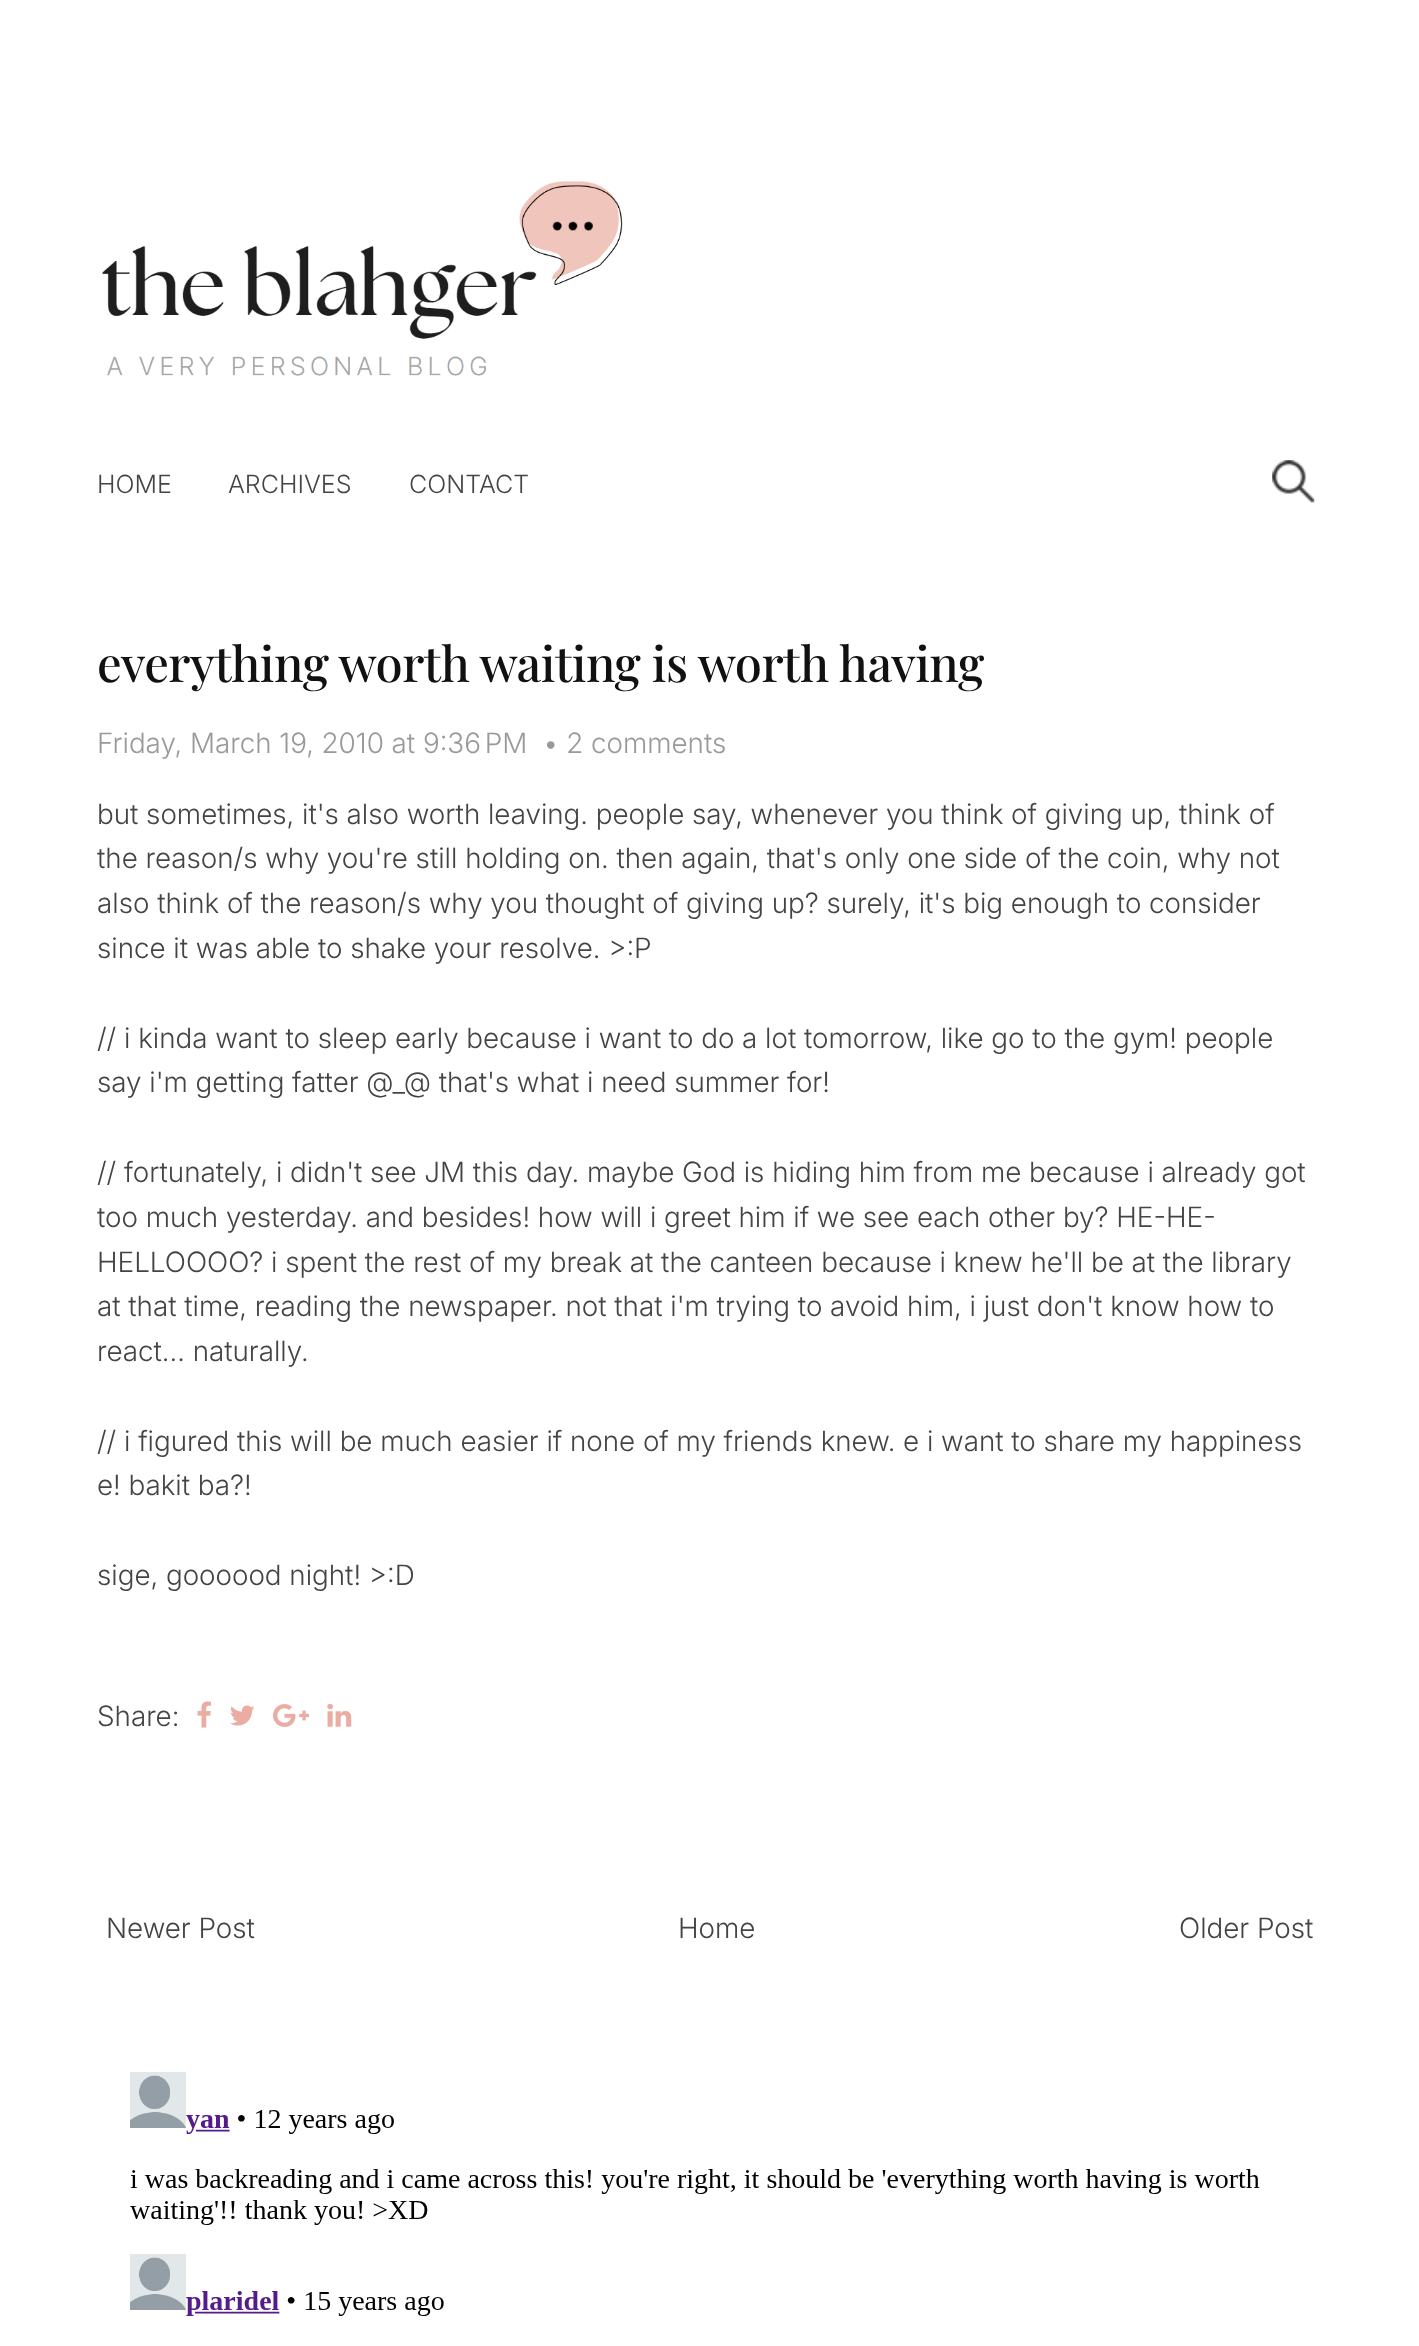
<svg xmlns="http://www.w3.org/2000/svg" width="1419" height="2346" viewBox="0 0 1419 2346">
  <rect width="100%" height="100%" fill="#ffffff"/>
  <image x="102" y="181" width="521" height="195" href="img1.png"/>
  <text x="97" y="493" font-family="Inter" font-size="25" font-weight="300" fill="#444444">HOME</text>
  <text x="228" y="493" font-family="Inter" font-size="25" font-weight="300" fill="#444444">ARCHIVES</text>
  <text x="409" y="493" font-family="Inter" font-size="25" font-weight="300" fill="#444444">CONTACT</text>
  <image x="1272" y="460" width="43" height="43" href="img2.png"/>
  <text x="97" y="682" font-family="Playfair Display" font-size="49" font-weight="500" letter-spacing="-0.5" fill="#111111">everything worth waiting is worth having</text>
  <text x="97" y="753" font-family="'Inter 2'" font-size="28" font-weight="300" fill="#999999">Friday, March 19, 2010 at 9:36 PM</text>
  <text x="543" y="753" font-family="'Inter 2'" font-size="28" font-weight="300" fill="#999999">• 2 comments</text>
  <text x="97" y="824" font-family="'Inter 2'" font-size="28" font-weight="300" fill="#444444">but sometimes, it's also worth leaving. people say, whenever you think of giving up, think of</text>
  <text x="97" y="868" font-family="'Inter 2'" font-size="28" font-weight="300" fill="#444444">the reason/s why you're still holding on. then again, that's only one side of the coin, why not</text>
  <text x="97" y="913" font-family="'Inter 2'" font-size="28" font-weight="300" fill="#444444">also think of the reason/s why you thought of giving up? surely, it's big enough to consider</text>
  <text x="97" y="958" font-family="'Inter 2'" font-size="28" font-weight="300" fill="#444444">since it was able to shake your resolve. &gt;:P</text>
  <text x="97" y="1048" font-family="'Inter 2'" font-size="28" font-weight="300" fill="#444444">// i kinda want to sleep early because i want to do a lot tomorrow, like go to the gym! people</text>
  <text x="97" y="1092" font-family="'Inter 2'" font-size="28" font-weight="300" fill="#444444">say i'm getting fatter @_@ that's what i need summer for!</text>
  <text x="97" y="1182" font-family="'Inter 2'" font-size="28" font-weight="300" fill="#444444">// fortunately, i didn't see JM this day. maybe God is hiding him from me because i already got</text>
  <text x="97" y="1227" font-family="'Inter 2'" font-size="28" font-weight="300" fill="#444444">too much yesterday. and besides! how will i greet him if we see each other by? HE-HE-</text>
  <text x="97" y="1272" font-family="'Inter 2'" font-size="28" font-weight="300" fill="#444444">HELLOOOO? i spent the rest of my break at the canteen because i knew he'll be at the library</text>
  <text x="97" y="1316" font-family="'Inter 2'" font-size="28" font-weight="300" fill="#444444">at that time, reading the newspaper. not that i'm trying to avoid him, i just don't know how to</text>
  <text x="97" y="1361" font-family="'Inter 2'" font-size="28" font-weight="300" fill="#444444">react... naturally.</text>
  <text x="97" y="1451" font-family="'Inter 2'" font-size="28" font-weight="300" fill="#444444">// i figured this will be much easier if none of my friends knew. e i want to share my happiness</text>
  <text x="97" y="1495" font-family="'Inter 2'" font-size="28" font-weight="300" fill="#444444">e! bakit ba?!</text>
  <text x="97" y="1585" font-family="'Inter 2'" font-size="28" font-weight="300" fill="#444444">sige, goooood night! &gt;:D</text>
  <text x="97" y="1726" font-family="'Inter 2'" font-size="28" font-weight="300" fill="#444444">Share:</text>
  <image x="197" y="1701" width="14" height="27" href="img3.png"/>
  <image x="230" y="1705" width="25" height="21" href="img4.png"/>
  <image x="273" y="1704" width="36" height="23" href="img5.png"/>
  <image x="327" y="1703" width="25" height="24" href="img6.png"/>
  <text x="106" y="1938" font-family="'Inter 2'" font-size="28" font-weight="300" fill="#444444">Newer Post</text>
  <text x="678" y="1938" font-family="'Inter 2'" font-size="28" font-weight="300" fill="#444444">Home</text>
  <text x="1179" y="1938" font-family="'Inter 2'" font-size="28" font-weight="300" fill="#444444">Older Post</text>
  <image x="130" y="2072" width="1130" height="244" href="img7.png"/>
</svg>
